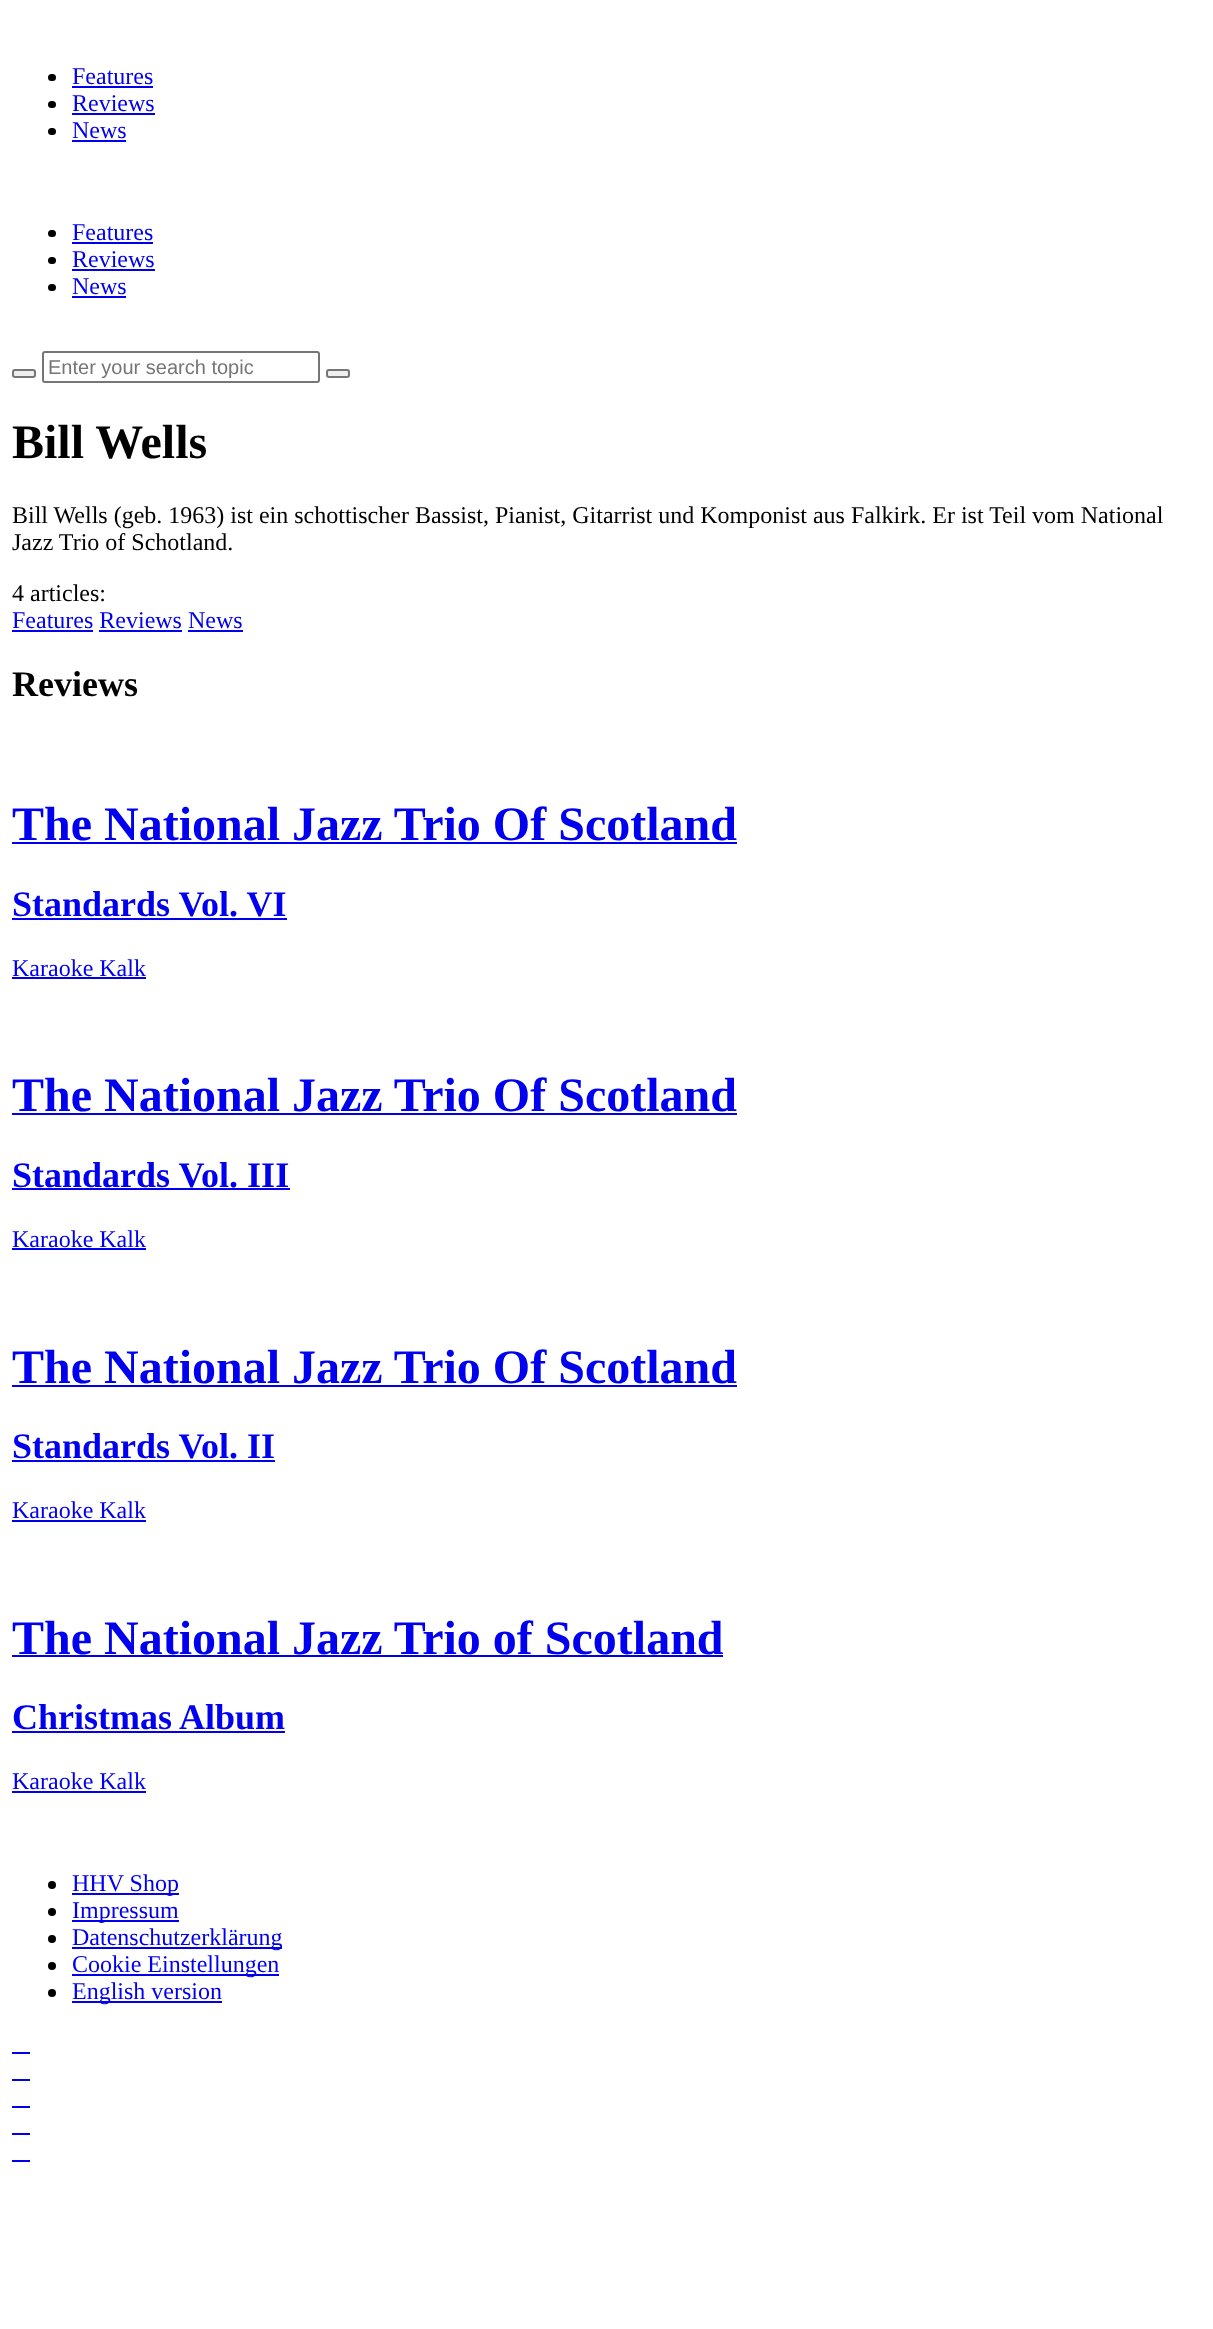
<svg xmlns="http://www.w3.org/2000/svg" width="1213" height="2329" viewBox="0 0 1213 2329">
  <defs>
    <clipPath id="clip1"><rect x="48" y="356" width="246" height="22"/></clipPath>
  </defs>
  <rect width="100%" height="100%" fill="#ffffff"/>
  <rect x="48" y="74" width="8" height="7" rx="3.5" fill="#000000"/>
  <text x="72" y="84" font-family="Liberation Serif" font-size="24" fill="#0000ee">Features</text>
  <rect x="72" y="86" width="81" height="2" fill="#0000ee"/>
  <rect x="48" y="101" width="8" height="7" rx="3.5" fill="#000000"/>
  <text x="72" y="111" font-family="Liberation Serif" font-size="24" fill="#0000ee">Reviews</text>
  <rect x="72" y="113" width="83" height="2" fill="#0000ee"/>
  <rect x="48" y="128" width="8" height="7" rx="3.5" fill="#000000"/>
  <text x="72" y="138" font-family="Liberation Serif" font-size="24" fill="#0000ee">News</text>
  <rect x="72" y="140" width="54" height="2" fill="#0000ee"/>
  <rect x="48" y="230" width="8" height="7" rx="3.5" fill="#000000"/>
  <text x="72" y="240" font-family="Liberation Serif" font-size="24" fill="#0000ee">Features</text>
  <rect x="72" y="242" width="81" height="2" fill="#0000ee"/>
  <rect x="48" y="257" width="8" height="7" rx="3.5" fill="#000000"/>
  <text x="72" y="267" font-family="Liberation Serif" font-size="24" fill="#0000ee">Reviews</text>
  <rect x="72" y="269" width="83" height="2" fill="#0000ee"/>
  <rect x="48" y="284" width="8" height="7" rx="3.5" fill="#000000"/>
  <text x="72" y="294" font-family="Liberation Serif" font-size="24" fill="#0000ee">News</text>
  <rect x="72" y="296" width="54" height="2" fill="#0000ee"/>
  <rect x="13" y="370" width="22" height="7" rx="2" fill="#efefef" stroke="#767676" stroke-width="2"/>
  <rect x="43" y="352" width="276" height="30" rx="2" fill="none" stroke="#767676" stroke-width="2"/>
  <g clip-path="url(#clip1)">
    <text x="48" y="374" font-family="Liberation Sans" font-size="20" fill="#757575">Enter your search topic</text>
  </g>
  <rect x="327" y="370" width="22" height="7" rx="2" fill="#efefef" stroke="#767676" stroke-width="2"/>
  <text x="12" y="458" font-family="Liberation Serif" font-size="48" font-weight="bold" fill="#000000">Bill Wells</text>
  <text x="12" y="523" font-family="Liberation Serif" font-size="24" fill="#000000">Bill Wells (geb. 1963) ist ein schottischer Bassist, Pianist, Gitarrist und Komponist aus Falkirk. Er ist Teil vom National</text>
  <text x="12" y="550" font-family="Liberation Serif" font-size="24" fill="#000000">Jazz Trio of Schotland.</text>
  <text x="12" y="601" font-family="Liberation Serif" font-size="24" fill="#000000">4 articles:</text>
  <text x="12" y="628" font-family="Liberation Serif" font-size="24" fill="#0000ee">Features Reviews News</text>
  <rect x="12" y="630" width="81" height="2" fill="#0000ee"/>
  <rect x="99" y="630" width="83" height="2" fill="#0000ee"/>
  <rect x="188" y="630" width="55" height="2" fill="#0000ee"/>
  <text x="12" y="696" font-family="Liberation Serif" font-size="36" font-weight="bold" fill="#000000">Reviews</text>
  <text x="12" y="840" font-family="Liberation Serif" font-size="48" font-weight="bold" fill="#0000ee">The National Jazz Trio Of Scotland</text>
  <rect x="12" y="842" width="725" height="2" fill="#0000ee"/>
  <text x="12" y="916" font-family="Liberation Serif" font-size="36" font-weight="bold" fill="#0000ee">Standards Vol. VI</text>
  <rect x="12" y="918" width="275" height="2" fill="#0000ee"/>
  <text x="12" y="976" font-family="Liberation Serif" font-size="24" fill="#0000ee">Karaoke Kalk</text>
  <rect x="12" y="977" width="134" height="2" fill="#0000ee"/>
  <text x="12" y="1111" font-family="Liberation Serif" font-size="48" font-weight="bold" fill="#0000ee">The National Jazz Trio Of Scotland</text>
  <rect x="12" y="1113" width="725" height="2" fill="#0000ee"/>
  <text x="12" y="1187" font-family="Liberation Serif" font-size="36" font-weight="bold" fill="#0000ee">Standards Vol. III</text>
  <rect x="12" y="1188" width="278" height="2" fill="#0000ee"/>
  <text x="12" y="1247" font-family="Liberation Serif" font-size="24" fill="#0000ee">Karaoke Kalk</text>
  <rect x="12" y="1248" width="134" height="2" fill="#0000ee"/>
  <text x="12" y="1383" font-family="Liberation Serif" font-size="48" font-weight="bold" fill="#0000ee">The National Jazz Trio Of Scotland</text>
  <rect x="12" y="1385" width="725" height="2" fill="#0000ee"/>
  <text x="12" y="1458" font-family="Liberation Serif" font-size="36" font-weight="bold" fill="#0000ee">Standards Vol. II</text>
  <rect x="12" y="1460" width="263" height="2" fill="#0000ee"/>
  <text x="12" y="1518" font-family="Liberation Serif" font-size="24" fill="#0000ee">Karaoke Kalk</text>
  <rect x="12" y="1520" width="134" height="2" fill="#0000ee"/>
  <text x="12" y="1654" font-family="Liberation Serif" font-size="48" font-weight="bold" fill="#0000ee">The National Jazz Trio of Scotland</text>
  <rect x="12" y="1655" width="711" height="2" fill="#0000ee"/>
  <text x="12" y="1729" font-family="Liberation Serif" font-size="36" font-weight="bold" fill="#0000ee">Christmas Album</text>
  <rect x="12" y="1731" width="273" height="2" fill="#0000ee"/>
  <text x="12" y="1789" font-family="Liberation Serif" font-size="24" fill="#0000ee">Karaoke Kalk</text>
  <rect x="12" y="1791" width="134" height="2" fill="#0000ee"/>
  <circle cx="52" cy="1885" r="4" fill="#000000"/>
  <rect x="72" y="1893" width="107" height="2" fill="#0000ee"/>
  <text x="72" y="1891" font-family="Liberation Serif" font-size="24" fill="#0000ee">HHV Shop</text>
  <circle cx="52" cy="1912" r="4" fill="#000000"/>
  <rect x="72" y="1920" width="107" height="2" fill="#0000ee"/>
  <text x="72" y="1918" font-family="Liberation Serif" font-size="24" fill="#0000ee">Impressum</text>
  <circle cx="52" cy="1939" r="4" fill="#000000"/>
  <rect x="72" y="1947" width="210" height="2" fill="#0000ee"/>
  <text x="72" y="1945" font-family="Liberation Serif" font-size="24" fill="#0000ee">Datenschutzerklärung</text>
  <circle cx="52" cy="1966" r="4" fill="#000000"/>
  <rect x="72" y="1974" width="207" height="2" fill="#0000ee"/>
  <text x="72" y="1972" font-family="Liberation Serif" font-size="24" fill="#0000ee">Cookie Einstellungen</text>
  <circle cx="52" cy="1993" r="4" fill="#000000"/>
  <rect x="72" y="2001" width="150" height="2" fill="#0000ee"/>
  <text x="72" y="1999" font-family="Liberation Serif" font-size="24" fill="#0000ee">English version</text>
  <rect x="12" y="2052" width="18" height="2" fill="#0000ee"/>
  <rect x="12" y="2079" width="18" height="2" fill="#0000ee"/>
  <rect x="12" y="2106" width="18" height="2" fill="#0000ee"/>
  <rect x="12" y="2133" width="18" height="2" fill="#0000ee"/>
  <rect x="12" y="2160" width="18" height="2" fill="#0000ee"/>
</svg>
